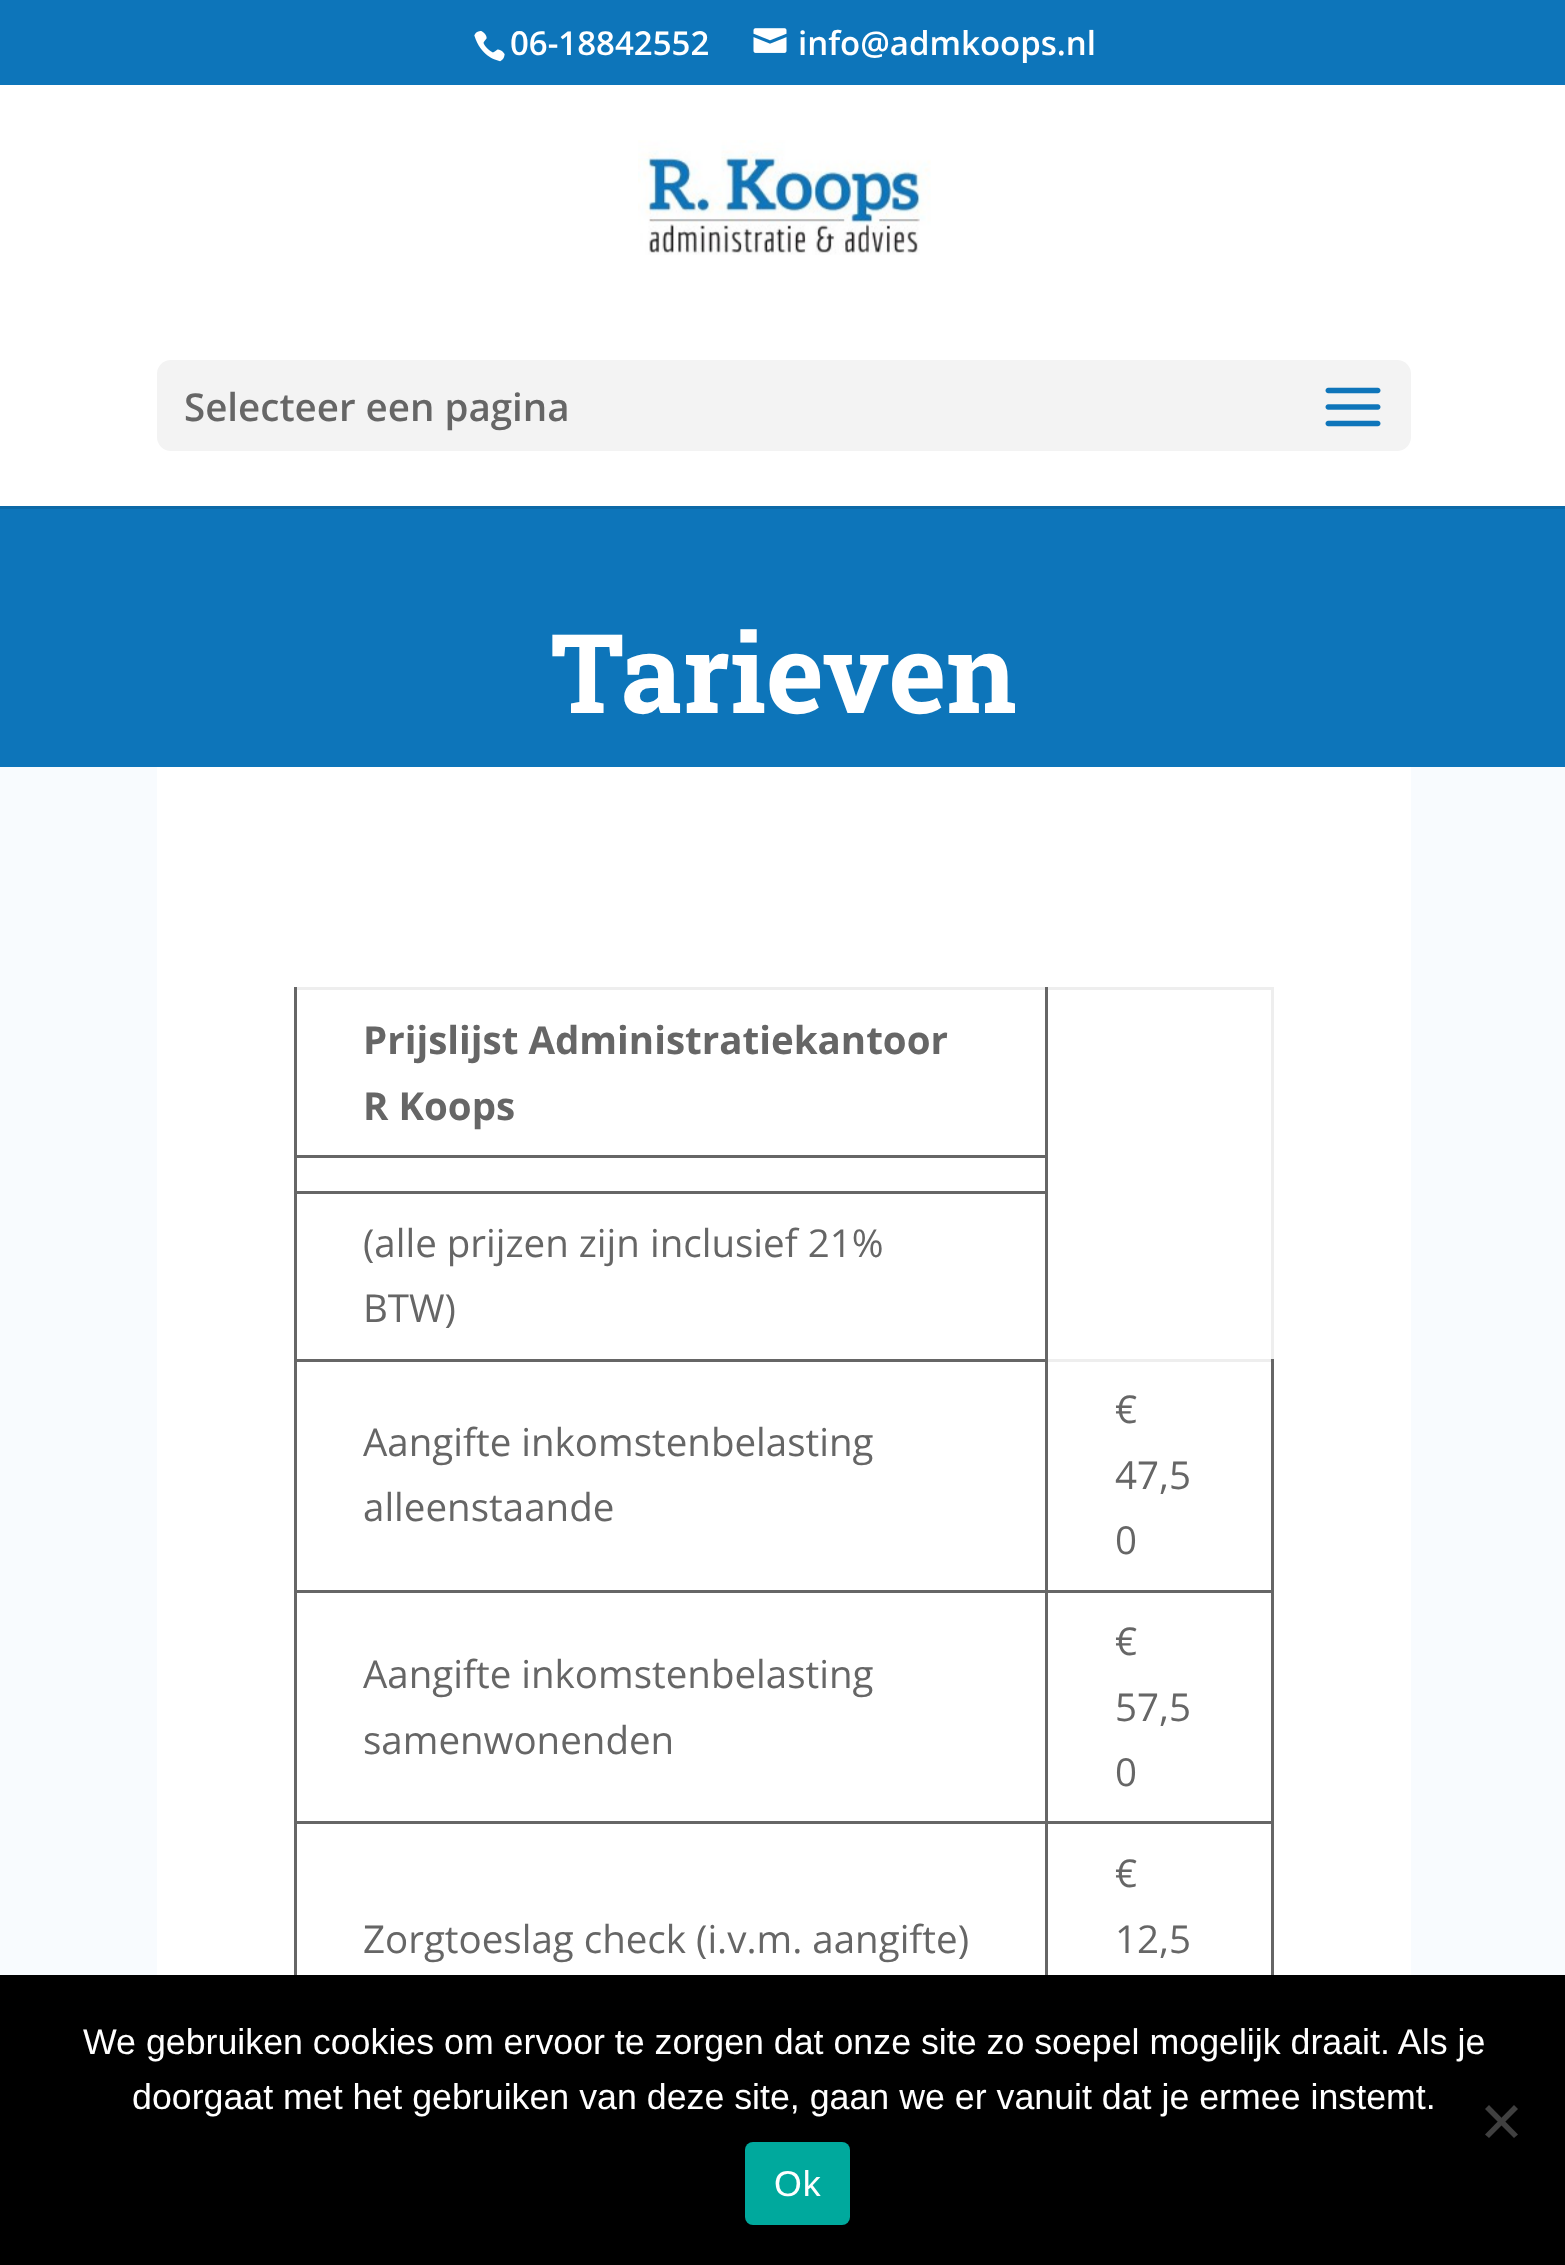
<svg xmlns="http://www.w3.org/2000/svg" width="1565" height="2265" viewBox="0 0 1565 2265">
  <rect width="100%" height="100%" fill="#0d75ba"/>
  <image x="474" y="30" width="31" height="32" href="img1.png"/>
  <text x="510" y="55" font-family="Open Sans" font-size="33" font-weight="600" fill="#ffffff">06-18842552</text>
  <image x="753" y="28" width="34" height="25" href="img2.png"/>
  <text x="798" y="55" font-family="Open Sans" font-size="33" font-weight="600" fill="#ffffff">info@admkoops.nl</text>
  <path d="M0 506V509H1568V88V506Z" fill="#0c69a7"/>
  <rect x="0" y="85" width="1565" height="421" fill="#ffffff"/>
  <image x="638" y="140" width="293" height="115" href="img3.png"/>
  <rect x="157" y="360" width="1254" height="91" rx="14" fill="#f3f3f3"/>
  <text x="184" y="421" font-family="Open Sans" font-size="38.5" font-weight="600" fill="#666666">Selecteer een pagina</text>
  <image x="1325" y="387" width="56" height="40" href="img4.png"/>
  <text x="550" y="713" font-family="Roboto Slab" font-size="110" font-weight="bold" fill="#ffffff">Tarieven</text>
  <rect x="0" y="767" width="1565" height="1208" fill="#f8fbfe"/>
  <rect x="157" y="767" width="1254" height="1208" fill="#ffffff"/>
  <rect x="294" y="987" width="979" height="3" fill="#eeeeee"/>
  <rect x="1271" y="987" width="3" height="372" fill="#eeeeee"/>
  <rect x="1045" y="1359" width="228" height="3" fill="#eeeeee"/>
  <rect x="1271" y="1590" width="3" height="385" fill="#666666"/>
  <rect x="1271" y="1359" width="3" height="233" fill="#666666"/>
  <rect x="1045" y="1821" width="3" height="154" fill="#666666"/>
  <rect x="1045" y="1821" width="228" height="3" fill="#666666"/>
  <rect x="1045" y="1590" width="3" height="233" fill="#666666"/>
  <rect x="1045" y="1590" width="228" height="3" fill="#666666"/>
  <rect x="1045" y="987" width="3" height="605" fill="#666666"/>
  <rect x="294" y="1821" width="3" height="154" fill="#666666"/>
  <rect x="294" y="1821" width="754" height="3" fill="#666666"/>
  <rect x="294" y="1590" width="3" height="233" fill="#666666"/>
  <rect x="294" y="1590" width="754" height="3" fill="#666666"/>
  <rect x="294" y="1359" width="3" height="233" fill="#666666"/>
  <rect x="294" y="1359" width="754" height="3" fill="#666666"/>
  <rect x="294" y="1191" width="3" height="170" fill="#666666"/>
  <rect x="294" y="1191" width="754" height="3" fill="#666666"/>
  <rect x="294" y="1155" width="3" height="39" fill="#666666"/>
  <rect x="294" y="1155" width="754" height="3" fill="#666666"/>
  <rect x="294" y="987" width="3" height="171" fill="#666666"/>
  <text x="363" y="1054" font-family="Open Sans" font-size="38.5" font-weight="bold" fill="#666666">Prijslijst Administratiekantoor</text>
  <text x="363" y="1120" font-family="Open Sans" font-size="38.5" font-weight="bold" fill="#666666">R Koops</text>
  <text x="363" y="1257" font-family="Open Sans" font-size="38.5" fill="#666666">(alle prijzen zijn inclusief 21%</text>
  <text x="363" y="1322" font-family="Open Sans" font-size="38.5" fill="#666666">BTW)</text>
  <text x="363" y="1456" font-family="Open Sans" font-size="38.5" fill="#666666">Aangifte inkomstenbelasting</text>
  <text x="363" y="1521" font-family="Open Sans" font-size="38.5" fill="#666666">alleenstaande</text>
  <text x="1115" y="1423" font-family="Open Sans" font-size="38.5" fill="#666666">€</text>
  <text x="1115" y="1489" font-family="Open Sans" font-size="38.5" fill="#666666">47,5</text>
  <text x="1115" y="1554" font-family="Open Sans" font-size="38.5" fill="#666666">0</text>
  <text x="363" y="1688" font-family="Open Sans" font-size="38.5" fill="#666666">Aangifte inkomstenbelasting</text>
  <text x="363" y="1754" font-family="Open Sans" font-size="38.5" fill="#666666">samenwonenden</text>
  <text x="1115" y="1655" font-family="Open Sans" font-size="38.5" fill="#666666">€</text>
  <text x="1115" y="1721" font-family="Open Sans" font-size="38.5" fill="#666666">57,5</text>
  <text x="1115" y="1786" font-family="Open Sans" font-size="38.5" fill="#666666">0</text>
  <text x="363" y="1953" font-family="Open Sans" font-size="38.5" fill="#666666">Zorgtoeslag check (i.v.m. aangifte)</text>
  <text x="1115" y="1887" font-family="Open Sans" font-size="38.5" fill="#666666">€</text>
  <text x="1115" y="1953" font-family="Open Sans" font-size="38.5" fill="#666666">12,5</text>
  <rect x="0" y="1975" width="1565" height="290" fill="#000000"/>
  <text x="83" y="2054" font-family="Liberation Sans" font-size="35.75" fill="#ffffff">We gebruiken cookies om ervoor te zorgen dat onze site zo soepel mogelijk draait. Als je</text>
  <text x="132" y="2109" font-family="Liberation Sans" font-size="35.75" fill="#ffffff">doorgaat met het gebruiken van deze site, gaan we er vanuit dat je ermee instemt.</text>
  <path d="M1514 2105L1518 2109L1489 2138L1485 2134.5Z" fill="#404040"/>
  <path d="M1485 2109L1489 2105L1518 2134.5L1514 2138Z" fill="#404040"/>
  <rect x="745" y="2142" width="105" height="83" rx="8" fill="#00a99d"/>
  <text x="774" y="2196" font-family="Liberation Sans" font-size="35.75" letter-spacing="1" fill="#ffffff">Ok</text>
</svg>
